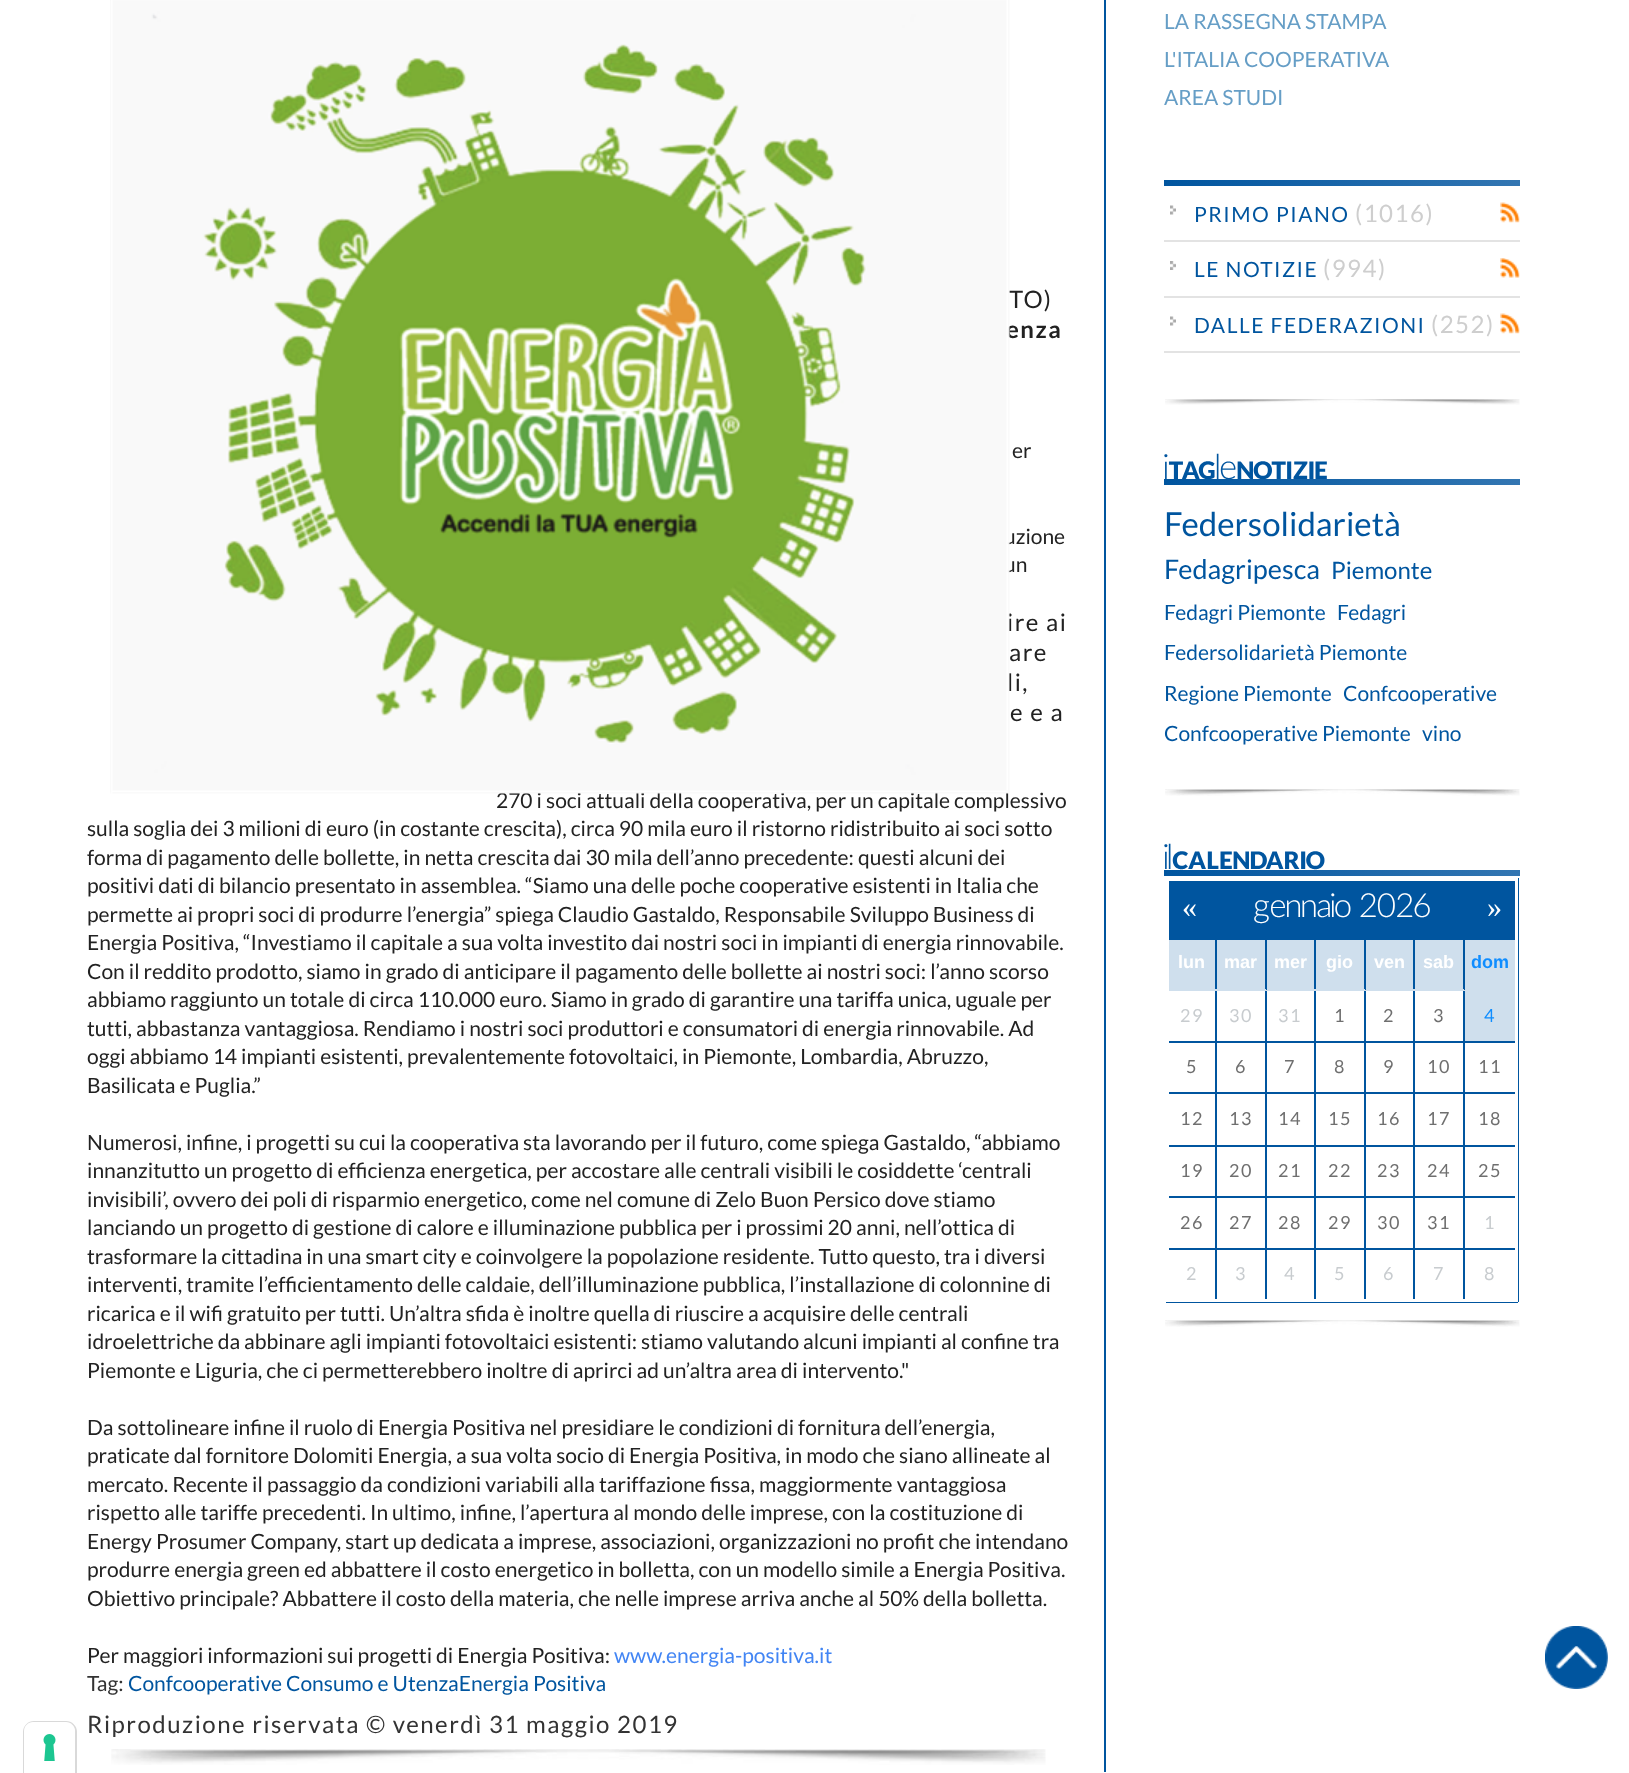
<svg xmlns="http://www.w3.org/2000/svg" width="1629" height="1773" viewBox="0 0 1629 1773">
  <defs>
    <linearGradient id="g1" gradientUnits="userSpaceOnUse" x1="1164" y1="183" x2="1520" y2="183"><stop offset="0" stop-color="#00559f"/><stop offset="1" stop-color="#3376b2"/></linearGradient>
    <linearGradient id="g2" gradientUnits="userSpaceOnUse" x1="1164" y1="482" x2="1520" y2="482"><stop offset="0" stop-color="#00559f"/><stop offset="1" stop-color="#3376b2"/></linearGradient>
    <linearGradient id="g3" gradientUnits="userSpaceOnUse" x1="1164" y1="873" x2="1520" y2="873"><stop offset="0" stop-color="#00559f"/><stop offset="1" stop-color="#3376b2"/></linearGradient>
  </defs>
  <rect width="100%" height="100%" fill="#ffffff"/>
  <rect x="1104" y="0" width="2" height="1772" fill="#00559f"/>
  <text x="1009" y="308" font-family="Lato" font-size="24" letter-spacing="1.5" fill="#222222">TO)</text>
  <text x="1006" y="338" font-family="Lato" font-size="24" font-weight="bold" letter-spacing="1.5" fill="#222222">enza</text>
  <text x="1004" y="544" font-family="Lato" font-size="21" fill="#222222">uzione</text>
  <text x="1004" y="572" font-family="Lato" font-size="21" fill="#222222">un</text>
  <text x="1007" y="631" font-family="Lato" font-size="24" letter-spacing="1.5" fill="#222222">ire ai</text>
  <text x="1007" y="691" font-family="Lato" font-size="24" letter-spacing="1.5" fill="#222222">li,</text>
  <text x="496" y="808" font-family="Lato" font-size="21" fill="#222222">270 i soci attuali della cooperativa, per un capitale complessivo</text>
  <image x="110" y="0" width="900" height="794" href="img1.png"/>
  <text x="1012" y="458" font-family="Lato" font-size="21" fill="#222222">er</text>
  <text x="1009" y="661" font-family="Lato" font-size="24" letter-spacing="1.5" fill="#222222">are</text>
  <text x="1010" y="721" font-family="Lato" font-size="24" letter-spacing="1.5" fill="#222222">e e a</text>
  <text x="87" y="836" font-family="Lato" font-size="21" fill="#222222">sulla soglia dei 3 milioni di euro (in costante crescita), circa 90 mila euro il ristorno ridistribuito ai soci sotto</text>
  <text x="87" y="865" font-family="Lato" font-size="21" fill="#222222">forma di pagamento delle bollette, in netta crescita dai 30 mila dell’anno precedente: questi alcuni dei</text>
  <text x="87" y="893" font-family="Lato" font-size="21" fill="#222222">positivi dati di bilancio presentato in assemblea. “Siamo una delle poche cooperative esistenti in Italia che</text>
  <text x="87" y="922" font-family="Lato" font-size="21" fill="#222222">permette ai propri soci di produrre l’energia” spiega Claudio Gastaldo, Responsabile Sviluppo Business di</text>
  <text x="87" y="950" font-family="Lato" font-size="21" fill="#222222">Energia Positiva, “Investiamo il capitale a sua volta investito dai nostri soci in impianti di energia rinnovabile.</text>
  <text x="87" y="979" font-family="Lato" font-size="21" fill="#222222">Con il reddito prodotto, siamo in grado di anticipare il pagamento delle bollette ai nostri soci: l’anno scorso</text>
  <text x="87" y="1007" font-family="Lato" font-size="21" fill="#222222">abbiamo raggiunto un totale di circa 110.000 euro. Siamo in grado di garantire una tariffa unica, uguale per</text>
  <text x="87" y="1036" font-family="Lato" font-size="21" fill="#222222">tutti, abbastanza vantaggiosa. Rendiamo i nostri soci produttori e consumatori di energia rinnovabile. Ad</text>
  <text x="87" y="1064" font-family="Lato" font-size="21" fill="#222222">oggi abbiamo 14 impianti esistenti, prevalentemente fotovoltaici, in Piemonte, Lombardia, Abruzzo,</text>
  <text x="87" y="1093" font-family="Lato" font-size="21" fill="#222222">Basilicata e Puglia.”</text>
  <text x="87" y="1150" font-family="Lato" font-size="21" fill="#222222">Numerosi, infine, i progetti su cui la cooperativa sta lavorando per il futuro, come spiega Gastaldo, “abbiamo</text>
  <text x="87" y="1178" font-family="Lato" font-size="21" fill="#222222">innanzitutto un progetto di efficienza energetica, per accostare alle centrali visibili le cosiddette ‘centrali</text>
  <text x="87" y="1207" font-family="Lato" font-size="21" fill="#222222">invisibili’, ovvero dei poli di risparmio energetico, come nel comune di Zelo Buon Persico dove stiamo</text>
  <text x="87" y="1235" font-family="Lato" font-size="21" fill="#222222">lanciando un progetto di gestione di calore e illuminazione pubblica per i prossimi 20 anni, nell’ottica di</text>
  <text x="87" y="1264" font-family="Lato" font-size="21" fill="#222222">trasformare la cittadina in una smart city e coinvolgere la popolazione residente. Tutto questo, tra i diversi</text>
  <text x="87" y="1292" font-family="Lato" font-size="21" fill="#222222">interventi, tramite l’efficientamento delle caldaie, dell’illuminazione pubblica, l’installazione di colonnine di</text>
  <text x="87" y="1321" font-family="Lato" font-size="21" fill="#222222">ricarica e il wifi gratuito per tutti. Un’altra sfida è inoltre quella di riuscire a acquisire delle centrali</text>
  <text x="87" y="1349" font-family="Lato" font-size="21" fill="#222222">idroelettriche da abbinare agli impianti fotovoltaici esistenti: stiamo valutando alcuni impianti al confine tra</text>
  <text x="87" y="1378" font-family="Lato" font-size="21" fill="#222222">Piemonte e Liguria, che ci permetterebbero inoltre di aprirci ad un’altra area di intervento."</text>
  <text x="87" y="1435" font-family="Lato" font-size="21" fill="#222222">Da sottolineare infine il ruolo di Energia Positiva nel presidiare le condizioni di fornitura dell’energia,</text>
  <text x="87" y="1463" font-family="Lato" font-size="21" fill="#222222">praticate dal fornitore Dolomiti Energia, a sua volta socio di Energia Positiva, in modo che siano allineate al</text>
  <text x="87" y="1492" font-family="Lato" font-size="21" fill="#222222">mercato. Recente il passaggio da condizioni variabili alla tariffazione fissa, maggiormente vantaggiosa</text>
  <text x="87" y="1520" font-family="Lato" font-size="21" fill="#222222">rispetto alle tariffe precedenti. In ultimo, infine, l’apertura al mondo delle imprese, con la costituzione di</text>
  <text x="87" y="1549" font-family="Lato" font-size="21" fill="#222222">Energy Prosumer Company, start up dedicata a imprese, associazioni, organizzazioni no profit che intendano</text>
  <text x="87" y="1577" font-family="Lato" font-size="21" fill="#222222">produrre energia green ed abbattere il costo energetico in bolletta, con un modello simile a Energia Positiva.</text>
  <text x="87" y="1606" font-family="Lato" font-size="21" fill="#222222">Obiettivo principale? Abbattere il costo della materia, che nelle imprese arriva anche al 50% della bolletta.</text>
  <text x="87" y="1663" font-family="Lato" font-size="21" fill="#222222">Per maggiori informazioni sui progetti di Energia Positiva:</text>
  <text x="614" y="1663" font-family="Lato" font-size="21" fill="#4285f4">www.energia-positiva.it</text>
  <text x="87" y="1691" font-family="Lato" font-size="21" fill="#333333">Tag:</text>
  <text x="128" y="1691" font-family="Lato" font-size="21" fill="#00559f">Confcooperative Consumo e UtenzaEnergia Positiva</text>
  <text x="87" y="1733" font-family="Lato" font-size="24" letter-spacing="1.5" fill="#333333">Riproduzione riservata © venerdì 31 maggio 2019</text>
  <image x="111" y="1749" width="935" height="16" href="img2.png"/>
  <text x="1164" y="29" font-family="Lato" font-size="21" fill="#669ec6">LA RASSEGNA STAMPA</text>
  <text x="1164" y="67" font-family="Lato" font-size="21" fill="#669ec6">L'ITALIA COOPERATIVA</text>
  <text x="1164" y="105" font-family="Lato" font-size="21" fill="#669ec6">AREA STUDI</text>
  <rect x="1164" y="180" width="356" height="6" fill="url(#g1)"/>
  <rect x="1164" y="240" width="356" height="2" fill="#e3e3e3"/>
  <image x="1170" y="205" width="6" height="10" href="img3.png"/>
  <text x="1194" y="222" font-family="Lato" font-size="21" letter-spacing="1.5" fill="#00559f">PRIMO PIANO</text>
  <text x="1355" y="222" font-family="Lato" font-size="24" letter-spacing="1.5" fill="#cecece">(1016)</text>
  <image x="1500" y="202" width="20" height="21" href="img4.png"/>
  <rect x="1164" y="296" width="356" height="2" fill="#e3e3e3"/>
  <image x="1170" y="261" width="6" height="9" href="img5.png"/>
  <text x="1194" y="277" font-family="Lato" font-size="21" letter-spacing="1.5" fill="#00559f">LE NOTIZIE</text>
  <text x="1323" y="277" font-family="Lato" font-size="24" letter-spacing="1.5" fill="#cecece">(994)</text>
  <image x="1500" y="258" width="20" height="20" href="img6.png"/>
  <rect x="1164" y="351" width="356" height="2" fill="#e3e3e3"/>
  <image x="1170" y="316" width="6" height="10" href="img3.png"/>
  <text x="1194" y="333" font-family="Lato" font-size="21" letter-spacing="1.5" fill="#00559f">DALLE FEDERAZIONI</text>
  <text x="1431" y="333" font-family="Lato" font-size="24" letter-spacing="1.5" fill="#cecece">(252)</text>
  <image x="1500" y="313" width="20" height="21" href="img4.png"/>
  <image x="1165" y="399" width="355" height="6" href="img7.png"/>
  <text x="1164" y="479" font-family="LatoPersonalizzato" font-size="31.5" fill="#00559f">iTAGleNOTIZIE</text>
  <rect x="1164" y="479" width="356" height="6" fill="url(#g2)"/>
  <text x="1164" y="536" font-family="Lato" font-size="33" fill="#00559f">Federsolidarietà</text>
  <text x="1164" y="579" font-family="Lato" font-size="27" fill="#00559f">Fedagripesca</text>
  <text x="1331" y="579" font-family="Lato" font-size="24" fill="#00559f">Piemonte</text>
  <text x="1164" y="620" font-family="Lato" font-size="21" fill="#00559f">Fedagri Piemonte</text>
  <text x="1337" y="620" font-family="Lato" font-size="21" fill="#00559f">Fedagri</text>
  <text x="1164" y="660" font-family="Lato" font-size="21" fill="#00559f">Federsolidarietà Piemonte</text>
  <text x="1164" y="701" font-family="Lato" font-size="21" fill="#00559f">Regione Piemonte</text>
  <text x="1343" y="701" font-family="Lato" font-size="21" fill="#00559f">Confcooperative</text>
  <text x="1164" y="741" font-family="Lato" font-size="21" fill="#00559f">Confcooperative Piemonte</text>
  <text x="1422" y="741" font-family="Lato" font-size="21" fill="#00559f">vino</text>
  <image x="1165" y="789" width="355" height="7" href="img8.png"/>
  <text x="1164" y="869" font-family="LatoPersonalizzato" font-size="31.5" fill="#00559f">ilCALENDARIO</text>
  <rect x="1164" y="870" width="356" height="6" fill="url(#g3)"/>
  <rect x="1463" y="938" width="55" height="2" fill="#00559f"/>
  <rect x="1463" y="1041" width="55" height="2" fill="#00559f"/>
  <rect x="1463" y="1092" width="55" height="2" fill="#00559f"/>
  <rect x="1463" y="1145" width="55" height="2" fill="#00559f"/>
  <rect x="1463" y="1196" width="55" height="2" fill="#00559f"/>
  <rect x="1463" y="1248" width="55" height="2" fill="#00559f"/>
  <rect x="1463" y="1248" width="2" height="54" fill="#00559f"/>
  <rect x="1413" y="1248" width="51" height="2" fill="#00559f"/>
  <rect x="1463" y="1196" width="2" height="54" fill="#00559f"/>
  <rect x="1413" y="1196" width="51" height="2" fill="#00559f"/>
  <rect x="1463" y="1145" width="2" height="52" fill="#00559f"/>
  <rect x="1413" y="1145" width="51" height="2" fill="#00559f"/>
  <rect x="1463" y="1092" width="2" height="54" fill="#00559f"/>
  <rect x="1413" y="1092" width="51" height="2" fill="#00559f"/>
  <rect x="1463" y="1041" width="2" height="53" fill="#00559f"/>
  <rect x="1413" y="1041" width="51" height="2" fill="#00559f"/>
  <rect x="1463" y="989" width="2" height="54" fill="#00559f"/>
  <rect x="1463" y="989" width="55" height="2" fill="#cfdfed"/>
  <rect x="1515" y="938" width="3" height="312" fill="#ffffff"/>
  <rect x="1413" y="1248" width="2" height="54" fill="#00559f"/>
  <rect x="1364" y="1248" width="51" height="2" fill="#00559f"/>
  <rect x="1364" y="1248" width="2" height="54" fill="#00559f"/>
  <rect x="1314" y="1248" width="51" height="2" fill="#00559f"/>
  <rect x="1314" y="1248" width="2" height="54" fill="#00559f"/>
  <rect x="1265" y="1248" width="51" height="2" fill="#00559f"/>
  <rect x="1265" y="1248" width="2" height="54" fill="#00559f"/>
  <rect x="1215" y="1248" width="51" height="2" fill="#00559f"/>
  <rect x="1215" y="1248" width="2" height="54" fill="#00559f"/>
  <rect x="1215" y="1299" width="250" height="3" fill="#ffffff"/>
  <rect x="1463" y="938" width="2" height="52" fill="#00559f"/>
  <rect x="1413" y="938" width="51" height="2" fill="#00559f"/>
  <rect x="1413" y="1196" width="2" height="54" fill="#00559f"/>
  <rect x="1364" y="1196" width="51" height="2" fill="#00559f"/>
  <rect x="1413" y="1145" width="2" height="52" fill="#00559f"/>
  <rect x="1364" y="1145" width="51" height="2" fill="#00559f"/>
  <rect x="1413" y="1092" width="2" height="54" fill="#00559f"/>
  <rect x="1364" y="1092" width="51" height="2" fill="#00559f"/>
  <rect x="1413" y="1041" width="2" height="53" fill="#00559f"/>
  <rect x="1364" y="1041" width="51" height="2" fill="#00559f"/>
  <rect x="1413" y="989" width="2" height="54" fill="#00559f"/>
  <rect x="1413" y="989" width="51" height="2" fill="#cfdfed"/>
  <rect x="1413" y="938" width="2" height="52" fill="#00559f"/>
  <rect x="1364" y="938" width="51" height="2" fill="#00559f"/>
  <rect x="1364" y="1196" width="2" height="54" fill="#00559f"/>
  <rect x="1314" y="1196" width="51" height="2" fill="#00559f"/>
  <rect x="1364" y="1145" width="2" height="52" fill="#00559f"/>
  <rect x="1314" y="1145" width="51" height="2" fill="#00559f"/>
  <rect x="1364" y="1092" width="2" height="54" fill="#00559f"/>
  <rect x="1314" y="1092" width="51" height="2" fill="#00559f"/>
  <rect x="1364" y="1041" width="2" height="53" fill="#00559f"/>
  <rect x="1314" y="1041" width="51" height="2" fill="#00559f"/>
  <rect x="1364" y="989" width="2" height="54" fill="#00559f"/>
  <rect x="1364" y="989" width="51" height="2" fill="#cfdfed"/>
  <rect x="1364" y="938" width="2" height="52" fill="#00559f"/>
  <rect x="1314" y="938" width="51" height="2" fill="#00559f"/>
  <rect x="1314" y="1196" width="2" height="54" fill="#00559f"/>
  <rect x="1265" y="1196" width="51" height="2" fill="#00559f"/>
  <rect x="1314" y="1145" width="2" height="52" fill="#00559f"/>
  <rect x="1265" y="1145" width="51" height="2" fill="#00559f"/>
  <rect x="1314" y="1092" width="2" height="54" fill="#00559f"/>
  <rect x="1265" y="1092" width="51" height="2" fill="#00559f"/>
  <rect x="1314" y="1041" width="2" height="53" fill="#00559f"/>
  <rect x="1265" y="1041" width="51" height="2" fill="#00559f"/>
  <rect x="1314" y="989" width="2" height="54" fill="#00559f"/>
  <rect x="1314" y="989" width="51" height="2" fill="#cfdfed"/>
  <rect x="1314" y="938" width="2" height="52" fill="#00559f"/>
  <rect x="1265" y="938" width="51" height="2" fill="#00559f"/>
  <rect x="1265" y="1196" width="2" height="54" fill="#00559f"/>
  <rect x="1215" y="1196" width="51" height="2" fill="#00559f"/>
  <rect x="1265" y="1145" width="2" height="52" fill="#00559f"/>
  <rect x="1215" y="1145" width="51" height="2" fill="#00559f"/>
  <rect x="1265" y="1092" width="2" height="54" fill="#00559f"/>
  <rect x="1215" y="1092" width="51" height="2" fill="#00559f"/>
  <rect x="1265" y="1041" width="2" height="53" fill="#00559f"/>
  <rect x="1215" y="1041" width="51" height="2" fill="#00559f"/>
  <rect x="1265" y="989" width="2" height="54" fill="#00559f"/>
  <rect x="1265" y="989" width="51" height="2" fill="#cfdfed"/>
  <rect x="1265" y="938" width="2" height="52" fill="#00559f"/>
  <rect x="1215" y="938" width="51" height="2" fill="#00559f"/>
  <rect x="1166" y="1248" width="51" height="2" fill="#00559f"/>
  <rect x="1215" y="1196" width="2" height="54" fill="#00559f"/>
  <rect x="1166" y="1196" width="51" height="2" fill="#00559f"/>
  <rect x="1215" y="1145" width="2" height="52" fill="#00559f"/>
  <rect x="1166" y="1145" width="51" height="2" fill="#00559f"/>
  <rect x="1215" y="1092" width="2" height="54" fill="#00559f"/>
  <rect x="1166" y="1092" width="51" height="2" fill="#00559f"/>
  <rect x="1215" y="1041" width="2" height="53" fill="#00559f"/>
  <rect x="1166" y="1041" width="51" height="2" fill="#00559f"/>
  <rect x="1215" y="989" width="2" height="54" fill="#00559f"/>
  <rect x="1215" y="989" width="51" height="2" fill="#cfdfed"/>
  <rect x="1215" y="938" width="2" height="52" fill="#00559f"/>
  <rect x="1166" y="938" width="51" height="2" fill="#00559f"/>
  <rect x="1166" y="989" width="51" height="2" fill="#cfdfed"/>
  <rect x="1166" y="938" width="3" height="312" fill="#ffffff"/>
  <rect x="1169" y="881" width="345" height="57" fill="#00559f"/>
  <text x="1182" y="917" font-family="Liberation Serif" font-size="30" fill="#ffffff">«</text>
  <text x="1253" y="917" font-family="LatoPersonalizzato" font-size="30" fill="#ffffff">gennaio 2026</text>
  <rect x="1514" y="881" width="1" height="57" fill="#00559f"/>
  <text x="1487" y="917" font-family="Liberation Serif" font-size="30" fill="#ffffff">»</text>
  <rect x="1169" y="940" width="46" height="49" fill="#cfdfed"/>
  <text x="1178" y="968" font-family="Liberation Sans" font-size="18" font-weight="bold" fill="#ffffff">lun</text>
  <rect x="1217" y="940" width="48" height="49" fill="#cfdfed"/>
  <text x="1224" y="968" font-family="Liberation Sans" font-size="18" font-weight="bold" fill="#ffffff">mar</text>
  <rect x="1267" y="940" width="47" height="49" fill="#cfdfed"/>
  <text x="1274" y="968" font-family="Liberation Sans" font-size="18" font-weight="bold" fill="#ffffff">mer</text>
  <rect x="1316" y="940" width="48" height="49" fill="#cfdfed"/>
  <text x="1326" y="968" font-family="Liberation Sans" font-size="18" font-weight="bold" fill="#ffffff">gio</text>
  <rect x="1366" y="940" width="47" height="49" fill="#cfdfed"/>
  <text x="1374" y="968" font-family="Liberation Sans" font-size="18" font-weight="bold" fill="#ffffff">ven</text>
  <rect x="1415" y="940" width="48" height="49" fill="#cfdfed"/>
  <text x="1423" y="968" font-family="Liberation Sans" font-size="18" font-weight="bold" fill="#ffffff">sab</text>
  <rect x="1465" y="940" width="50" height="49" fill="#cfdfed"/>
  <text x="1471" y="968" font-family="Liberation Sans" font-size="18" font-weight="bold" fill="#0f8dff">dom</text>
  <text x="1180" y="1022" font-family="Lato" font-size="18" letter-spacing="1.5" fill="#c8cccf">29</text>
  <text x="1229" y="1022" font-family="Lato" font-size="18" letter-spacing="1.5" fill="#c8cccf">30</text>
  <text x="1278" y="1022" font-family="Lato" font-size="18" letter-spacing="1.5" fill="#c8cccf">31</text>
  <text x="1334" y="1022" font-family="Lato" font-size="18" letter-spacing="1.5" fill="#6f6f6f">1</text>
  <text x="1383" y="1022" font-family="Lato" font-size="18" letter-spacing="1.5" fill="#6f6f6f">2</text>
  <text x="1433" y="1022" font-family="Lato" font-size="18" letter-spacing="1.5" fill="#6f6f6f">3</text>
  <rect x="1465" y="991" width="50" height="50" fill="#cfdfed"/>
  <text x="1484" y="1022" font-family="Lato" font-size="18" letter-spacing="1.5" fill="#0f8dff">4</text>
  <text x="1186" y="1073" font-family="Lato" font-size="18" letter-spacing="1.5" fill="#6f6f6f">5</text>
  <text x="1235" y="1073" font-family="Lato" font-size="18" letter-spacing="1.5" fill="#6f6f6f">6</text>
  <text x="1284" y="1073" font-family="Lato" font-size="18" letter-spacing="1.5" fill="#6f6f6f">7</text>
  <text x="1334" y="1073" font-family="Lato" font-size="18" letter-spacing="1.5" fill="#6f6f6f">8</text>
  <text x="1383" y="1073" font-family="Lato" font-size="18" letter-spacing="1.5" fill="#6f6f6f">9</text>
  <text x="1427" y="1073" font-family="Lato" font-size="18" letter-spacing="1.5" fill="#6f6f6f">10</text>
  <text x="1478" y="1073" font-family="Lato" font-size="18" letter-spacing="1.5" fill="#6f6f6f">11</text>
  <text x="1180" y="1125" font-family="Lato" font-size="18" letter-spacing="1.5" fill="#6f6f6f">12</text>
  <text x="1229" y="1125" font-family="Lato" font-size="18" letter-spacing="1.5" fill="#6f6f6f">13</text>
  <text x="1278" y="1125" font-family="Lato" font-size="18" letter-spacing="1.5" fill="#6f6f6f">14</text>
  <text x="1328" y="1125" font-family="Lato" font-size="18" letter-spacing="1.5" fill="#6f6f6f">15</text>
  <text x="1377" y="1125" font-family="Lato" font-size="18" letter-spacing="1.5" fill="#6f6f6f">16</text>
  <text x="1427" y="1125" font-family="Lato" font-size="18" letter-spacing="1.5" fill="#6f6f6f">17</text>
  <text x="1478" y="1125" font-family="Lato" font-size="18" letter-spacing="1.5" fill="#6f6f6f">18</text>
  <text x="1180" y="1177" font-family="Lato" font-size="18" letter-spacing="1.5" fill="#6f6f6f">19</text>
  <text x="1229" y="1177" font-family="Lato" font-size="18" letter-spacing="1.5" fill="#6f6f6f">20</text>
  <text x="1278" y="1177" font-family="Lato" font-size="18" letter-spacing="1.5" fill="#6f6f6f">21</text>
  <text x="1328" y="1177" font-family="Lato" font-size="18" letter-spacing="1.5" fill="#6f6f6f">22</text>
  <text x="1377" y="1177" font-family="Lato" font-size="18" letter-spacing="1.5" fill="#6f6f6f">23</text>
  <text x="1427" y="1177" font-family="Lato" font-size="18" letter-spacing="1.5" fill="#6f6f6f">24</text>
  <text x="1478" y="1177" font-family="Lato" font-size="18" letter-spacing="1.5" fill="#6f6f6f">25</text>
  <text x="1180" y="1229" font-family="Lato" font-size="18" letter-spacing="1.5" fill="#6f6f6f">26</text>
  <text x="1229" y="1229" font-family="Lato" font-size="18" letter-spacing="1.5" fill="#6f6f6f">27</text>
  <text x="1278" y="1229" font-family="Lato" font-size="18" letter-spacing="1.5" fill="#6f6f6f">28</text>
  <text x="1328" y="1229" font-family="Lato" font-size="18" letter-spacing="1.5" fill="#6f6f6f">29</text>
  <text x="1377" y="1229" font-family="Lato" font-size="18" letter-spacing="1.5" fill="#6f6f6f">30</text>
  <text x="1427" y="1229" font-family="Lato" font-size="18" letter-spacing="1.5" fill="#6f6f6f">31</text>
  <text x="1484" y="1229" font-family="Lato" font-size="18" letter-spacing="1.5" fill="#c8cccf">1</text>
  <text x="1186" y="1280" font-family="Lato" font-size="18" letter-spacing="1.5" fill="#c8cccf">2</text>
  <text x="1235" y="1280" font-family="Lato" font-size="18" letter-spacing="1.5" fill="#c8cccf">3</text>
  <text x="1284" y="1280" font-family="Lato" font-size="18" letter-spacing="1.5" fill="#c8cccf">4</text>
  <text x="1334" y="1280" font-family="Lato" font-size="18" letter-spacing="1.5" fill="#c8cccf">5</text>
  <text x="1383" y="1280" font-family="Lato" font-size="18" letter-spacing="1.5" fill="#c8cccf">6</text>
  <text x="1433" y="1280" font-family="Lato" font-size="18" letter-spacing="1.5" fill="#c8cccf">7</text>
  <rect x="1518" y="878" width="1" height="424" fill="#00559f"/>
  <rect x="1166" y="1302" width="352" height="1" fill="#00559f"/>
  <text x="1484" y="1280" font-family="Lato" font-size="18" letter-spacing="1.5" fill="#c8cccf">8</text>
  <image x="1165" y="1320" width="355" height="7" href="img8.png"/>
  <image x="1545" y="1626" width="63" height="63" href="img9.png"/>
  <path d="M34 1722H66C71.5 1722 76 1726.5 76 1732V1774H24V1732C24 1726.5 28.5 1722 34 1722Z" fill="none" stroke="#d9d9d9" stroke-width="2"/>
  <path d="M33 1722H66C71 1722 75 1726 75 1731V1773H24V1731C24 1726 28 1722 33 1722Z" fill="#ffffff"/>
  <image x="43" y="1734" width="13" height="27" href="img10.png"/>
</svg>
